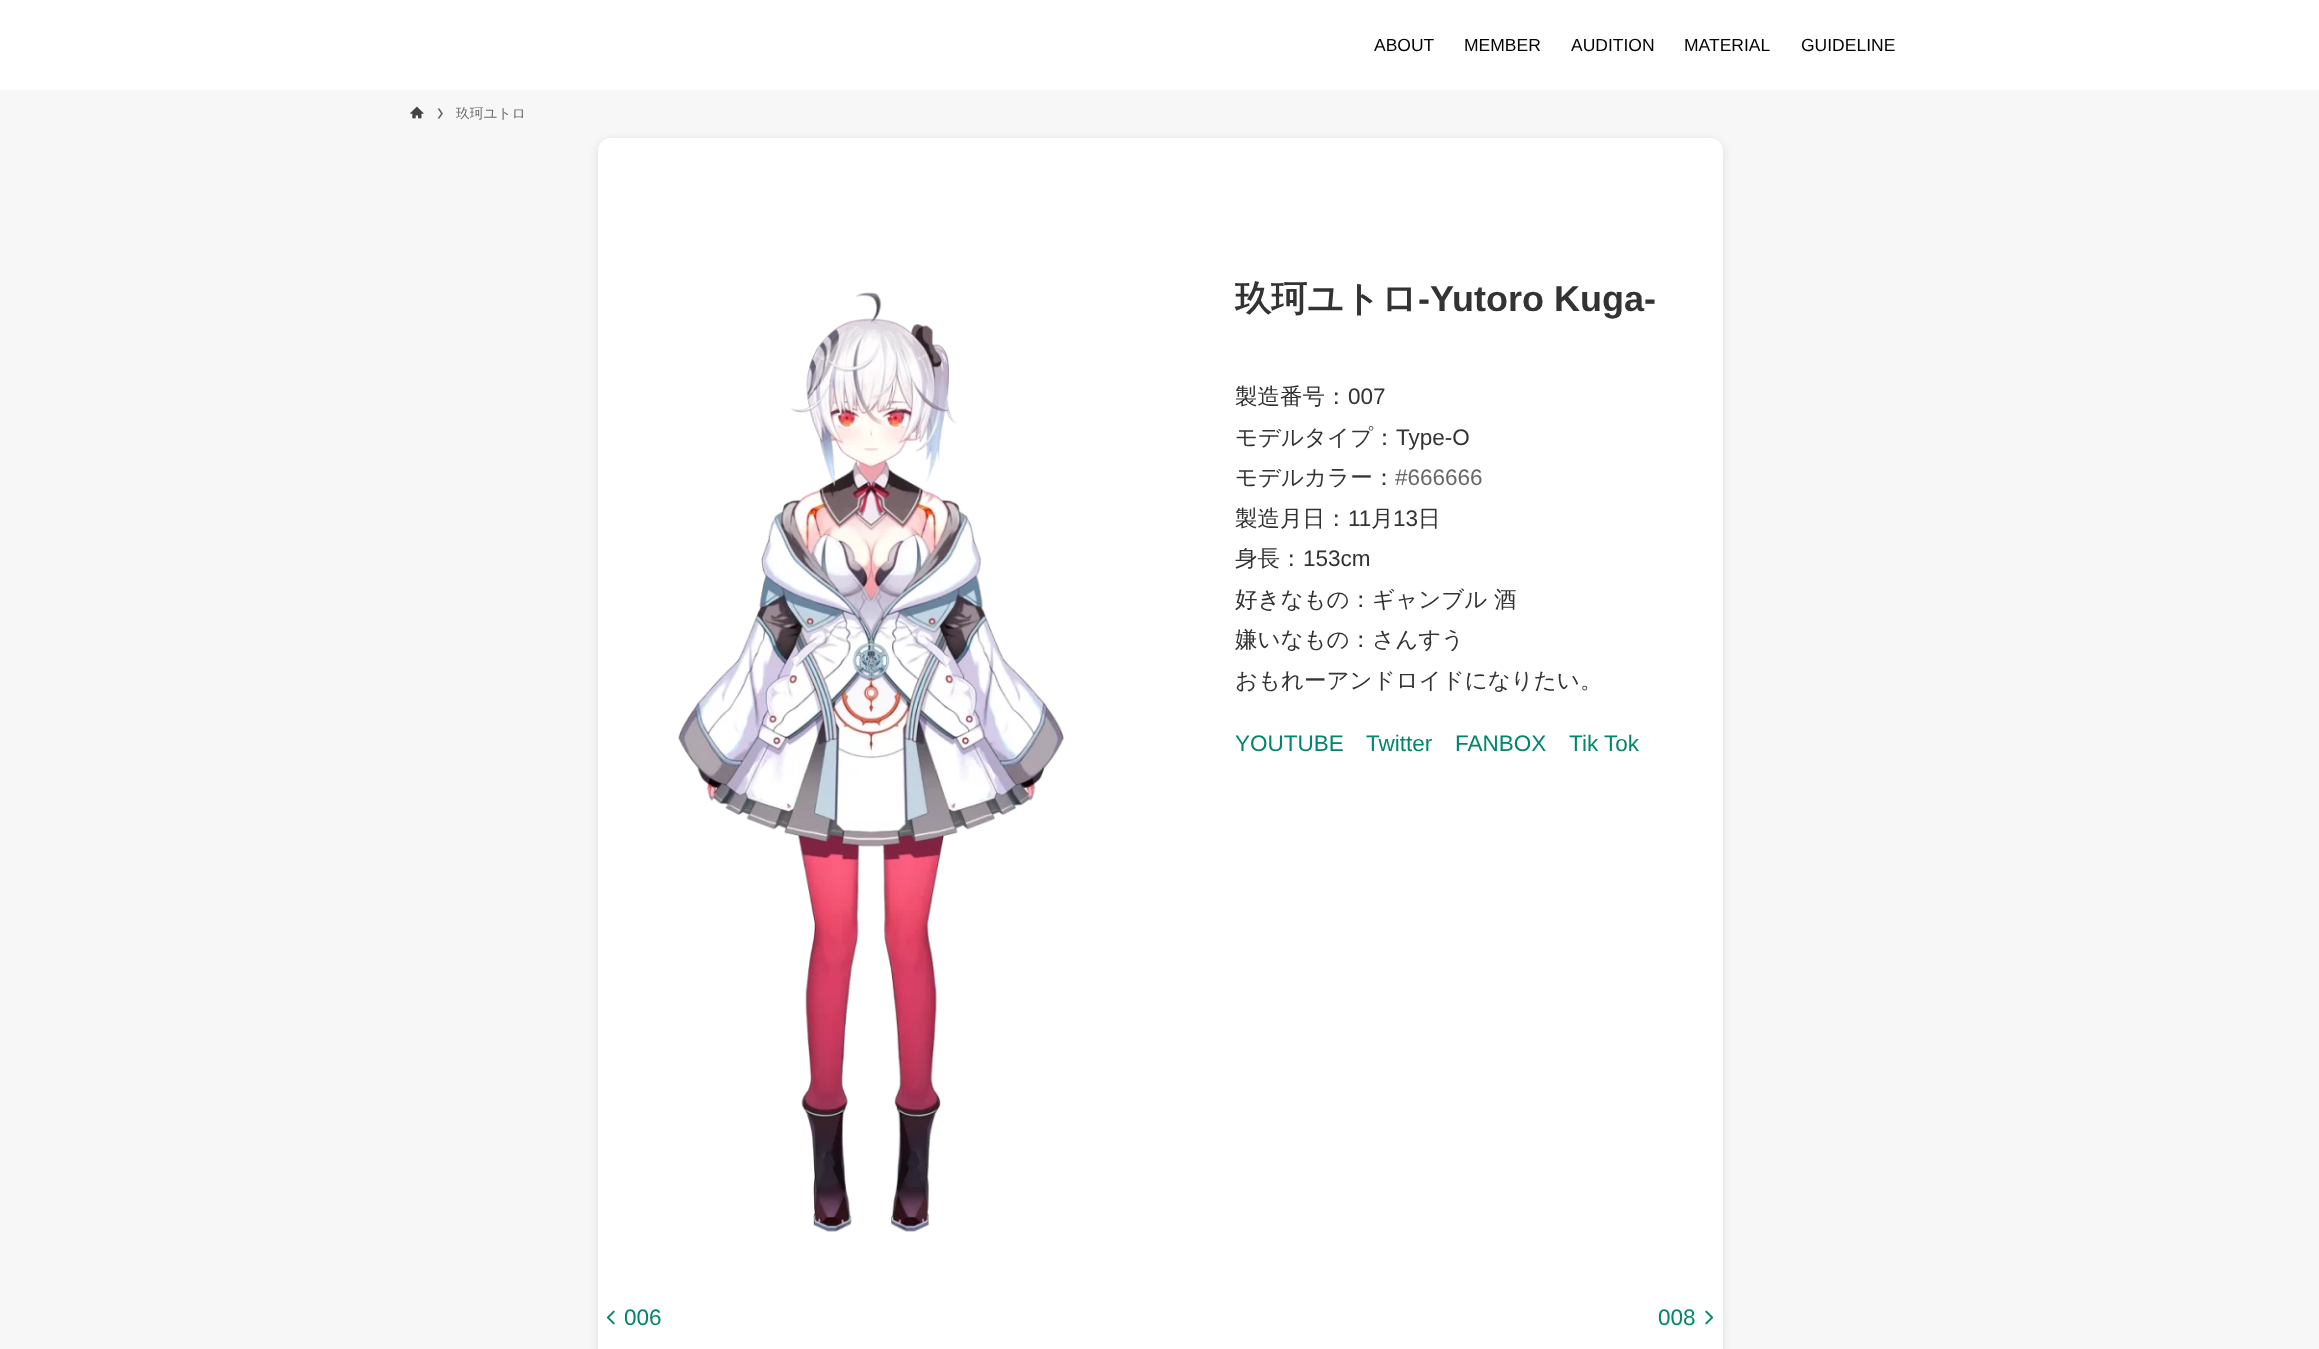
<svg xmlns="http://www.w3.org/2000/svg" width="2319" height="1349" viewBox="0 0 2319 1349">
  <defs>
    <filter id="blur1" x="-50%" y="-200%" width="200%" height="500%"><feGaussianBlur stdDeviation="5"/></filter>
  </defs>
  <rect width="100%" height="100%" fill="#f7f7f7"/>
  <rect x="0" y="0" width="2319" height="90" fill="#ffffff"/>
  <text x="1374" y="51" font-family="Liberation Sans" font-size="17.5" fill="#020202">ABOUT</text>
  <text x="1464" y="51" font-family="Liberation Sans" font-size="17.5" fill="#020202">MEMBER</text>
  <text x="1571" y="51" font-family="Liberation Sans" font-size="17.5" fill="#020202">AUDITION</text>
  <text x="1684" y="51" font-family="Liberation Sans" font-size="17.5" fill="#020202">MATERIAL</text>
  <text x="1801" y="51" font-family="Liberation Sans" font-size="17.5" fill="#020202">GUIDELINE</text>
  <image x="410" y="106" width="14" height="13" href="img1.png"/>
  <path d="M439.5 108.5H437.5L441 113.5L437.5 118.5H439.5L443 113.5Z" fill="#686868"/>
  <text x="456" y="118" font-family="WenQuanYi Zen Hei" font-size="13.75" font-weight="500" fill="#686868">玖珂ユトロ</text>
  <rect x="598" y="140" width="1125" height="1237" rx="13" fill="#000000" fill-opacity="0.1" filter="url(#blur1)"/>
  <rect x="598" y="138" width="1125" height="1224" rx="13" fill="#ffffff"/>
  <image x="678" y="292" width="386" height="940" href="img2.png"/>
  <text x="1235" y="311" font-family="WenQuanYi Zen Hei" font-size="36" font-weight="bold" fill="#333333">玖珂ユトロ</text>
  <text x="1418" y="311" font-family="Liberation Sans" font-size="36" font-weight="bold" fill="#333333">-Yutoro Kuga-</text>
  <text x="1235" y="404" font-family="WenQuanYi Zen Hei" font-size="22.5" font-weight="500" fill="#333333">製造番号：</text>
  <text x="1348" y="404" font-family="Liberation Sans" font-size="22.5" fill="#333333">007</text>
  <text x="1235" y="445" font-family="WenQuanYi Zen Hei" font-size="22.5" font-weight="500" fill="#333333">モデルタイプ：</text>
  <text x="1396" y="445" font-family="Liberation Sans" font-size="22.5" fill="#333333">Type-O</text>
  <text x="1235" y="485" font-family="WenQuanYi Zen Hei" font-size="22.5" font-weight="500" fill="#333333">モデルカラー：</text>
  <text x="1395" y="485" font-family="Liberation Sans" font-size="22.5" fill="#686868">#666666</text>
  <text x="1235" y="526" font-family="WenQuanYi Zen Hei" font-size="22.5" font-weight="500" fill="#333333">製造月日：</text>
  <text x="1348" y="526" font-family="Liberation Sans" font-size="22.5" fill="#333333">11</text>
  <text x="1371" y="526" font-family="WenQuanYi Zen Hei" font-size="22.5" font-weight="500" fill="#333333">月</text>
  <text x="1393" y="526" font-family="Liberation Sans" font-size="22.5" fill="#333333">13</text>
  <text x="1418" y="526" font-family="WenQuanYi Zen Hei" font-size="22.5" font-weight="500" fill="#333333">日</text>
  <text x="1235" y="566" font-family="WenQuanYi Zen Hei" font-size="22.5" font-weight="500" fill="#333333">身長：</text>
  <text x="1303" y="566" font-family="Liberation Sans" font-size="22.5" fill="#333333">153cm</text>
  <text x="1235" y="607" font-family="WenQuanYi Zen Hei" font-size="22.5" font-weight="500" fill="#333333">好きなもの：ギャンブル 酒</text>
  <text x="1235" y="647" font-family="WenQuanYi Zen Hei" font-size="22.5" font-weight="500" fill="#333333">嫌いなもの：さんすう</text>
  <text x="1235" y="688" font-family="WenQuanYi Zen Hei" font-size="22.5" font-weight="500" fill="#333333">おもれーアンドロイドになりたい。</text>
  <text x="1235" y="751" font-family="Liberation Sans" font-size="22.5" fill="#00866b">YOUTUBE</text>
  <text x="1366" y="751" font-family="Liberation Sans" font-size="22.5" fill="#00866b">Twitter</text>
  <text x="1455" y="751" font-family="Liberation Sans" font-size="22.5" fill="#00866b">FANBOX</text>
  <text x="1569" y="751" font-family="Liberation Sans" font-size="22.5" fill="#00866b">Tik Tok</text>
  <image x="606" y="1310" width="9" height="15" href="img3.png"/>
  <text x="624" y="1325" font-family="Liberation Sans" font-size="22.5" fill="#00866b">006</text>
  <text x="1658" y="1325" font-family="Liberation Sans" font-size="22.5" fill="#00866b">008</text>
  <image x="1705" y="1310" width="9" height="15" href="img4.png"/>
</svg>
